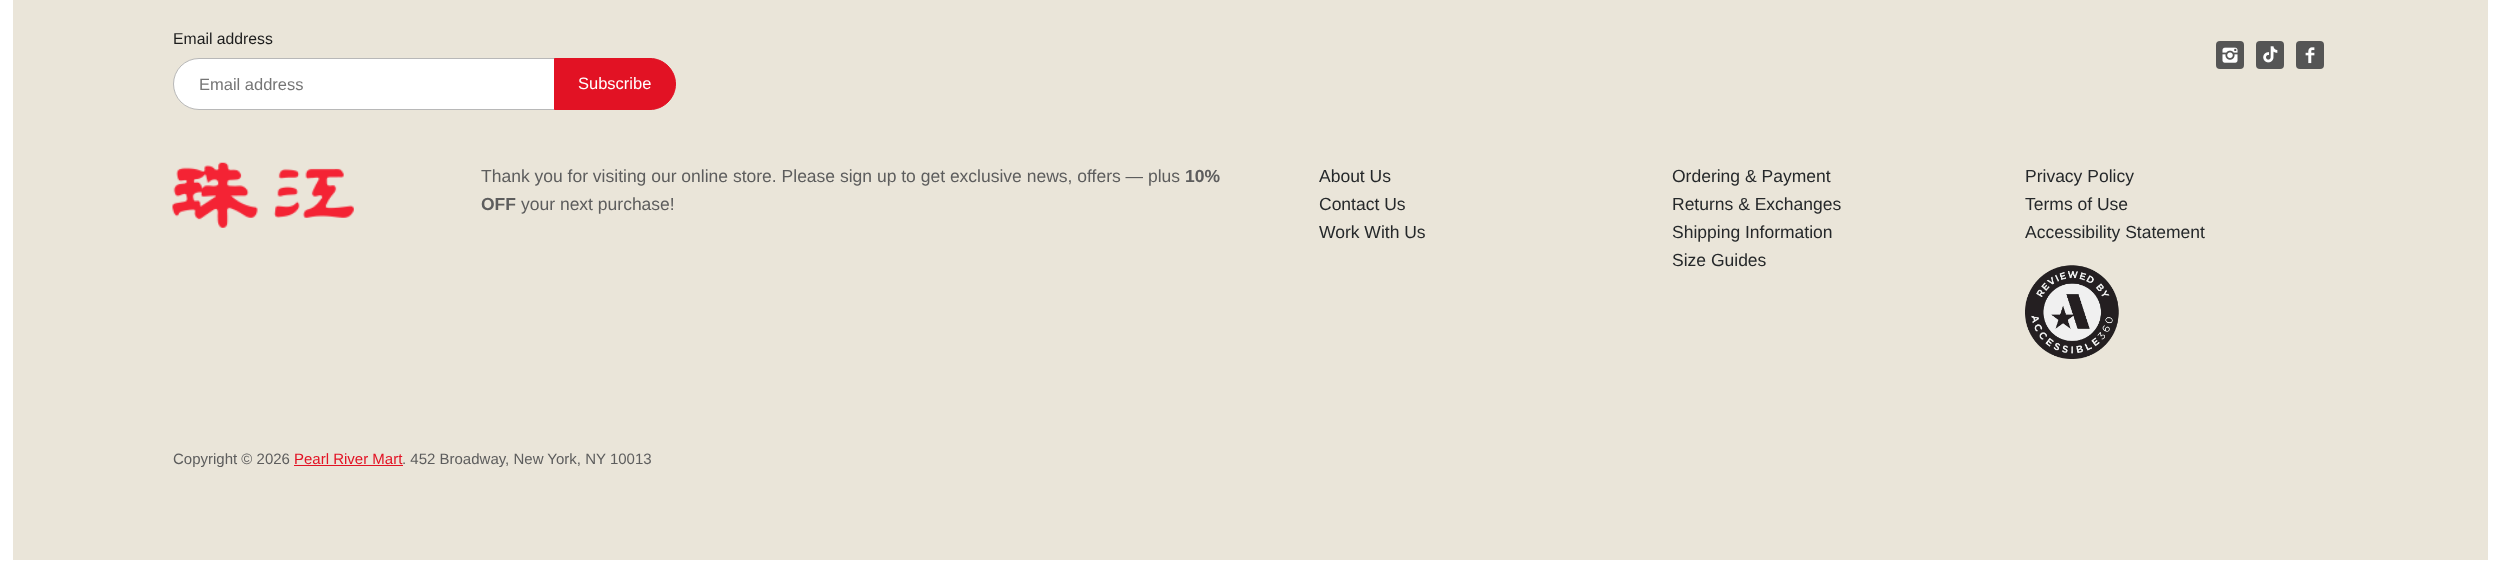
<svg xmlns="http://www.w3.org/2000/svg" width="2500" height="572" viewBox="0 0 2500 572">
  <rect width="100%" height="100%" fill="#ffffff"/>
  <rect x="13" y="0" width="2475" height="560" fill="#eae5d9"/>
  <text x="173" y="44" font-family="Liberation Sans" font-size="15.75" fill="#1d1d1d">Email address</text>
  <rect x="173.5" y="58.5" width="501" height="51" rx="25.5" fill="#ffffff" stroke="#b8b8b8"/>
  <text x="199" y="90" font-family="Liberation Sans" font-size="16.5" fill="#757575">Email address</text>
  <path d="M554.5 58.5H650C664 58.5 675.5 70 675.5 84C675.5 98 664 109.5 650 109.5H554.5Z" fill="#e21224" stroke="#e21224"/>
  <text x="578" y="89" font-family="Liberation Sans" font-size="16.5" fill="#ffffff">Subscribe</text>
  <rect x="2216" y="41" width="28" height="28" rx="4" fill="#555555"/>
  <image x="2222" y="47" width="16" height="16" href="img1.png"/>
  <rect x="2256" y="41" width="28" height="28" rx="4" fill="#555555"/>
  <image x="2263" y="46" width="15" height="17" href="img2.png"/>
  <rect x="2296" y="41" width="28" height="28" rx="4" fill="#555555"/>
  <image x="2305" y="47" width="10" height="17" href="img3.png"/>
  <image x="172" y="162" width="182" height="66" href="img4.png"/>
  <text x="481" y="182" font-family="Liberation Sans" font-size="17.5" fill="#5d5d5d">Thank you for visiting our online store. Please sign up to get exclusive news, offers — plus</text>
  <text x="1185" y="182" font-family="Liberation Sans" font-size="17.5" font-weight="bold" fill="#5d5d5d">10%</text>
  <text x="481" y="210" font-family="Liberation Sans" font-size="17.5" font-weight="bold" fill="#5d5d5d">OFF</text>
  <text x="521" y="210" font-family="Liberation Sans" font-size="17.5" fill="#5d5d5d">your next purchase!</text>
  <text x="1319" y="182" font-family="Liberation Sans" font-size="17.5" fill="#25282a">About Us</text>
  <text x="1319" y="210" font-family="Liberation Sans" font-size="17.5" fill="#25282a">Contact Us</text>
  <text x="1319" y="238" font-family="Liberation Sans" font-size="17.5" fill="#25282a">Work With Us</text>
  <text x="1672" y="182" font-family="Liberation Sans" font-size="17.5" fill="#25282a">Ordering &amp; Payment</text>
  <text x="1672" y="210" font-family="Liberation Sans" font-size="17.5" fill="#25282a">Returns &amp; Exchanges</text>
  <text x="1672" y="238" font-family="Liberation Sans" font-size="17.5" fill="#25282a">Shipping Information</text>
  <text x="1672" y="266" font-family="Liberation Sans" font-size="17.5" fill="#25282a">Size Guides</text>
  <text x="2025" y="182" font-family="Liberation Sans" font-size="17.5" fill="#25282a">Privacy Policy</text>
  <text x="2025" y="210" font-family="Liberation Sans" font-size="17.5" fill="#25282a">Terms of Use</text>
  <text x="2025" y="238" font-family="Liberation Sans" font-size="17.5" fill="#25282a">Accessibility Statement</text>
  <image x="2025" y="265" width="94" height="94" href="img5.png"/>
  <text x="173" y="464" font-family="Liberation Sans" font-size="15" fill="#5d5d5d">Copyright © 2026</text>
  <text x="294" y="464" font-family="Liberation Sans" font-size="15" fill="#e21224">Pearl River Mart</text>
  <rect x="294" y="465" width="109" height="1" fill="#e21224"/>
  <text x="402" y="464" font-family="Liberation Sans" font-size="15" fill="#5d5d5d">. 452 Broadway, New York, NY 10013</text>
</svg>
